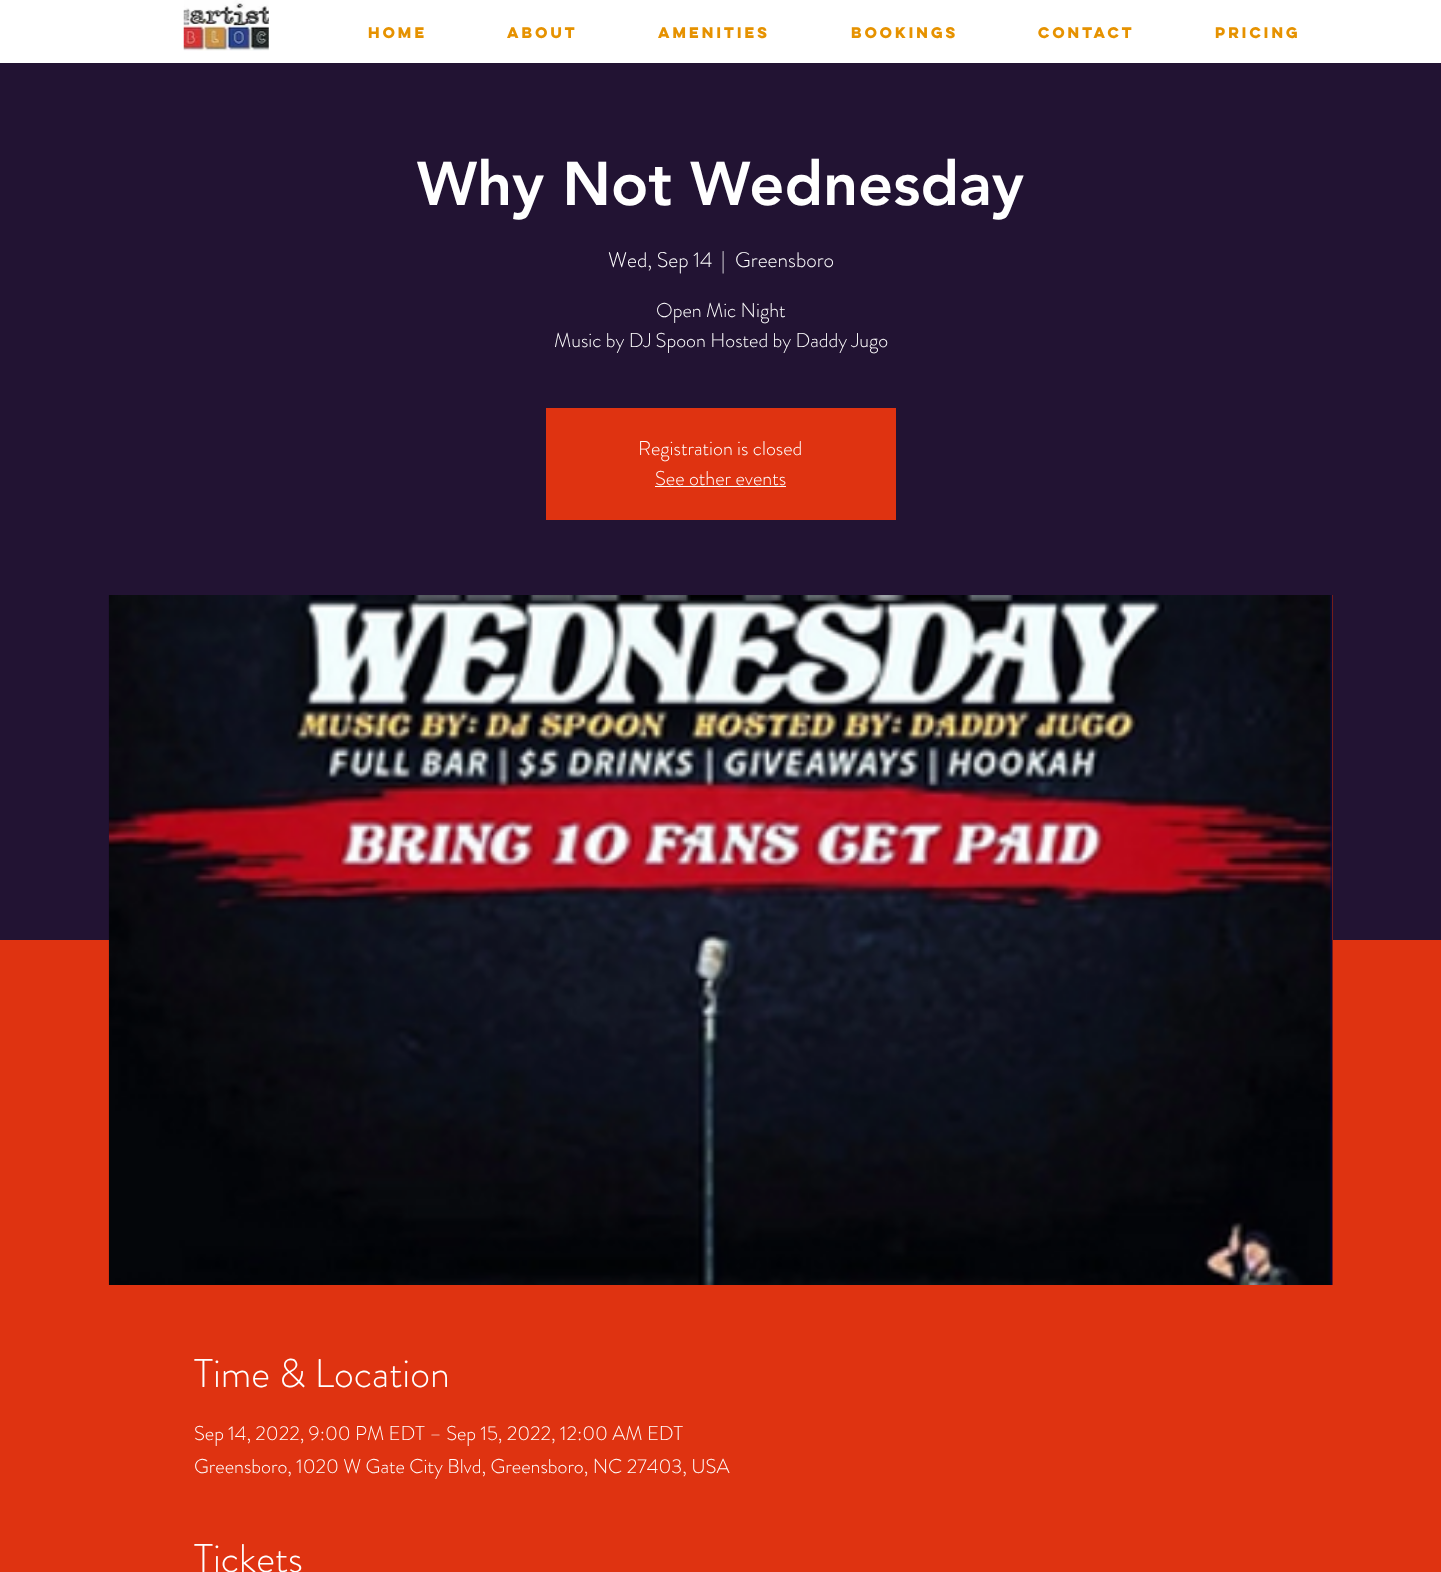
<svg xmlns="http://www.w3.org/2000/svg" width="1441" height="1572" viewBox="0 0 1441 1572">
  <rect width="100%" height="100%" fill="#221333"/>
  <rect x="0" y="0" width="1441" height="63" fill="#ffffff"/>
  <image x="183" y="0" width="86" height="51" href="img1.png"/>
  <text x="368" y="38" font-family="'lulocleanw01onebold'" font-size="13.75" font-weight="bold" fill="#e69200">HOME</text>
  <text x="507" y="38" font-family="'lulocleanw01onebold'" font-size="13.75" font-weight="bold" fill="#e69200">ABOUT</text>
  <text x="658" y="38" font-family="'lulocleanw01onebold'" font-size="13.75" font-weight="bold" fill="#e69200">AMENITIES</text>
  <text x="851" y="38" font-family="'lulocleanw01onebold'" font-size="13.75" font-weight="bold" fill="#e69200">BOOKINGS</text>
  <text x="1038" y="38" font-family="'lulocleanw01onebold'" font-size="13.75" font-weight="bold" fill="#e69200">CONTACT</text>
  <text x="1215" y="38" font-family="'lulocleanw01onebold'" font-size="13.75" font-weight="bold" fill="#e69200">PRICING</text>
  <text x="417" y="205" font-family="'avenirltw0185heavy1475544'" font-size="61.25" font-weight="900" fill="#ffffff">Why Not Wednesday</text>
  <text x="608" y="267" font-family="'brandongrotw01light'" font-size="21.25" font-weight="300" fill="#ffffff">Wed, Sep 14</text>
  <text x="721" y="267" font-family="'brandongrotw01light'" font-size="21.25" font-weight="300" fill="#ffffff">|</text>
  <text x="735" y="267" font-family="'brandongrotw01light'" font-size="21.25" font-weight="300" fill="#ffffff">Greensboro</text>
  <text x="656" y="317" font-family="'brandongrotw01light'" font-size="20" font-weight="300" fill="#ffffff">Open Mic Night</text>
  <text x="554" y="347" font-family="'brandongrotw01light'" font-size="20" font-weight="300" fill="#ffffff">Music by DJ Spoon Hosted by Daddy Jugo</text>
  <rect x="546" y="408" width="350" height="112" fill="#df3311"/>
  <text x="638" y="455" font-family="'brandongrotw01light'" font-size="20" font-weight="300" fill="#ffffff">Registration is closed</text>
  <text x="655" y="485" font-family="'brandongrotw01light'" font-size="20" font-weight="300" fill="#ffffff">See other events</text>
  <rect x="655" y="486" width="131" height="1" fill="#ffffff"/>
  <rect x="0" y="940" width="1441" height="632" fill="#df3311"/>
  <rect x="1332" y="595" width="1" height="690" fill="#99230b"/>
  <image x="108" y="595" width="1225" height="690" href="img2.png"/>
  <text x="194" y="1387" font-family="'brandongrotw01light'" font-size="40" font-weight="300" fill="#ffffff">Time &amp; Location</text>
  <text x="194" y="1440" font-family="'brandongrotw01light'" font-size="20" font-weight="300" fill="#ffffff">Sep 14, 2022, 9:00 PM EDT – Sep 15, 2022, 12:00 AM EDT</text>
  <text x="194" y="1473" font-family="'brandongrotw01light'" font-size="20" font-weight="300" fill="#ffffff">Greensboro, 1020 W Gate City Blvd, Greensboro, NC 27403, USA</text>
  <text x="194" y="1572" font-family="'brandongrotw01light'" font-size="40" font-weight="300" fill="#ffffff">Tickets</text>
</svg>
